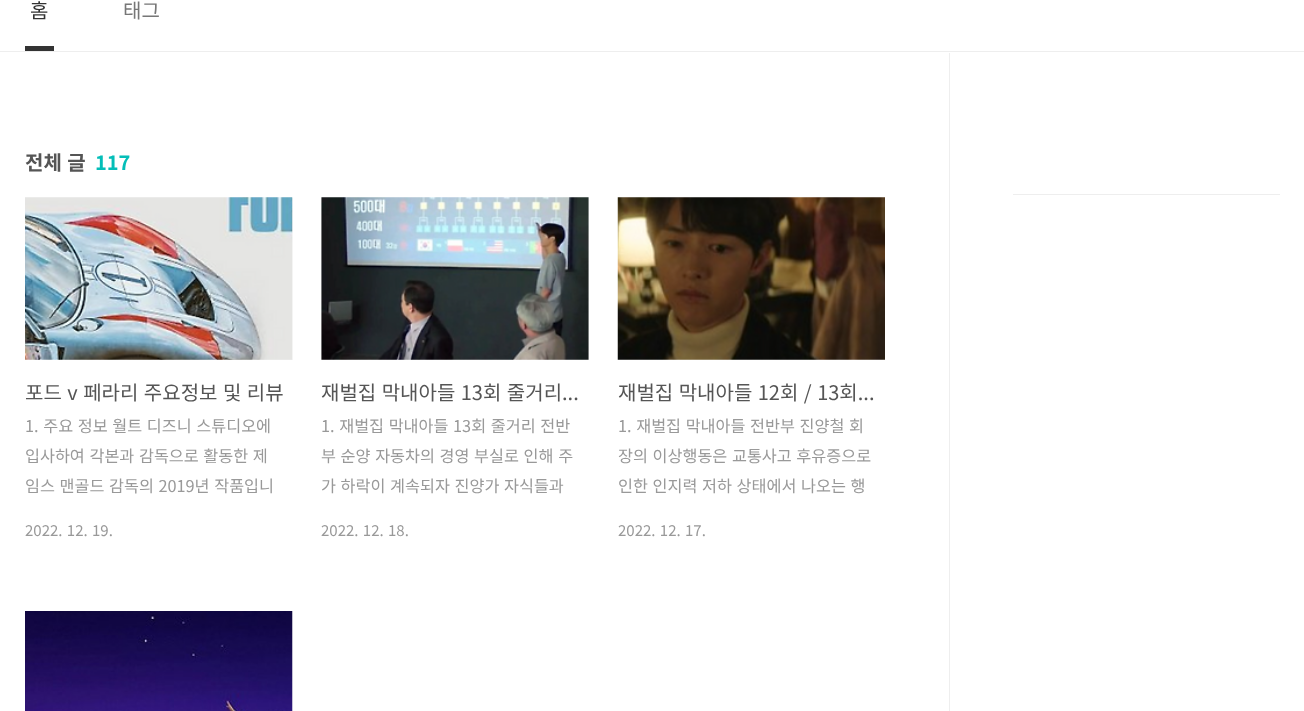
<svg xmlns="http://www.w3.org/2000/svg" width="1304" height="711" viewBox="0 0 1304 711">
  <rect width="100%" height="100%" fill="#ffffff"/>
  <rect x="0" y="51" width="1304" height="1" fill="#eeeeee"/>
  <text x="30" y="18" font-family="Noto Sans KR" font-size="20" fill="#333333">홈</text>
  <rect x="25" y="46" width="29" height="5" fill="#333333"/>
  <text x="123" y="18" font-family="Noto Sans KR" font-size="20" fill="#777777">태그</text>
  <text x="25" y="170" word-spacing="1" font-family="Noto Sans KR" font-size="20" font-weight="bold" fill="#555555">전체 글</text>
  <text x="95" y="170" font-family="Noto Sans KR" font-size="20" font-weight="bold" fill="#04beb8">117</text>
  <rect x="25" y="198" width="268" height="162" fill="#f8f8f8"/>
  <image x="25" y="197" width="268" height="163" href="img1.png"/>
  <text x="25" y="400" word-spacing="1" font-family="Noto Sans KR" font-size="20" fill="#555555">포드 v 페라리 주요정보 및 리뷰</text>
  <text x="25" y="432" word-spacing="1" font-family="Noto Sans KR" font-size="16.25" fill="#999999">1. 주요 정보 월트 디즈니 스튜디오에</text>
  <text x="25" y="462" word-spacing="1" font-family="Noto Sans KR" font-size="16.25" fill="#999999">입사하여 각본과 감독으로 활동한 제</text>
  <text x="25" y="492" word-spacing="1" font-family="Noto Sans KR" font-size="16.25" fill="#999999">임스 맨골드 감독의 2019년 작품입니</text>
  <text x="25" y="536" word-spacing="1" font-family="Noto Sans KR" font-size="15" fill="#999999">2022. 12. 19.</text>
  <rect x="321" y="198" width="268" height="162" fill="#f8f8f8"/>
  <image x="321" y="197" width="268" height="163" href="img2.png"/>
  <text x="321" y="400" word-spacing="1" font-family="Noto Sans KR" font-size="20" fill="#555555">재벌집 막내아들 13회 줄거리...</text>
  <text x="321" y="432" word-spacing="1" font-family="Noto Sans KR" font-size="16.25" fill="#999999">1. 재벌집 막내아들 13회 줄거리 전반</text>
  <text x="321" y="462" word-spacing="1" font-family="Noto Sans KR" font-size="16.25" fill="#999999">부 순양 자동차의 경영 부실로 인해 주</text>
  <text x="321" y="492" word-spacing="1" font-family="Noto Sans KR" font-size="16.25" fill="#999999">가 하락이 계속되자 진양가 자식들과</text>
  <text x="321" y="536" word-spacing="1" font-family="Noto Sans KR" font-size="15" fill="#999999">2022. 12. 18.</text>
  <image x="617" y="197" width="268" height="163" href="img3.png"/>
  <text x="618" y="400" word-spacing="1" font-family="Noto Sans KR" font-size="20" fill="#555555">재벌집 막내아들 12회 / 13회...</text>
  <text x="618" y="432" word-spacing="1" font-family="Noto Sans KR" font-size="16.25" fill="#999999">1. 재벌집 막내아들 전반부 진양철 회</text>
  <text x="618" y="462" word-spacing="1" font-family="Noto Sans KR" font-size="16.25" fill="#999999">장의 이상행동은 교통사고 후유증으로</text>
  <text x="618" y="492" word-spacing="1" font-family="Noto Sans KR" font-size="16.25" fill="#999999">인한 인지력 저하 상태에서 나오는 행</text>
  <text x="618" y="536" word-spacing="1" font-family="Noto Sans KR" font-size="15" fill="#999999">2022. 12. 17.</text>
  <rect x="292" y="611" width="1" height="100" fill="#f8f8f8"/>
  <image x="25" y="611" width="268" height="100" href="img4.png"/>
  <rect x="949" y="53" width="1" height="658" fill="#eeeeee"/>
  <rect x="1013" y="194" width="267" height="1" fill="#eeeeee"/>
</svg>
